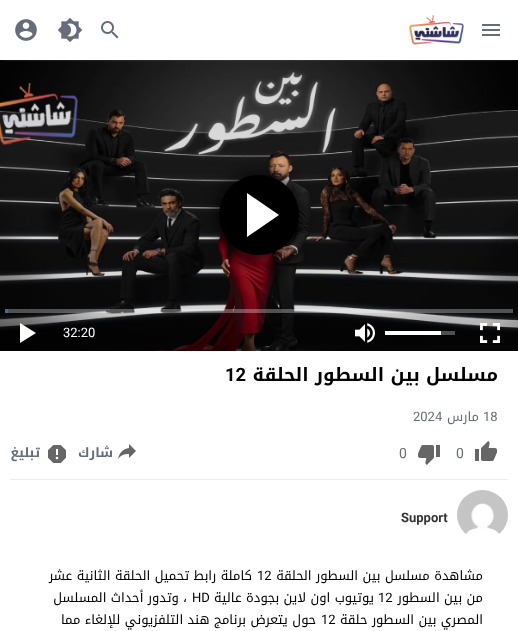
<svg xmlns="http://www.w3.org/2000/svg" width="518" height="631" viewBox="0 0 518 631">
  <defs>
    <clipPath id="clip1"><rect x="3" y="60" width="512" height="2"/></clipPath>
    <filter id="blur1" x="-50%" y="-200%" width="200%" height="500%"><feGaussianBlur stdDeviation="2.5"/></filter>
    <filter id="blur2" x="-50%" y="-200%" width="200%" height="500%"><feGaussianBlur stdDeviation="10"/></filter>
  </defs>
  <rect width="100%" height="100%" fill="#ffffff"/>
  <image x="0" y="60" width="518" height="291" href="img6.png"/>
  <g clip-path="url(#clip1)">
    <rect x="5" y="7" width="508" height="50" fill="#999999" filter="url(#blur1)"/>
  </g>
  <image x="482" y="24" width="18" height="12" href="img1.png"/>
  <image x="408" y="15" width="56" height="30" href="img2.png"/>
  <image x="101" y="21" width="18" height="18" href="img3.png"/>
  <image x="57" y="17" width="26" height="26" href="img4.png"/>
  <image x="15" y="19" width="22" height="22" href="img5.png"/>
  <rect x="219" y="175" width="80" height="80" rx="40" fill="#000000" filter="url(#blur2)"/>
  <circle cx="259" cy="215" r="40" fill="#000000"/>
  <path d="M247 237V193L279 215Z" fill="#ffffff"/>
  <rect x="5" y="309" width="508" height="4" fill="#ffffff" fill-opacity="0.3"/>
  <rect x="5" y="309" width="3" height="4" fill="#4267b2"/>
  <image x="480" y="323" width="20" height="20" href="img7.png"/>
  <rect x="441" y="331" width="14" height="4" fill="#4f4f4f"/>
  <rect x="385" y="331" width="56" height="4" fill="#ffffff"/>
  <image x="355" y="323" width="20" height="20" href="img8.png"/>
  <text x="63" y="337" font-family="Roboto" font-size="13" fill="#ffffff">32:20</text>
  <path d="M20 323V343L36 333Z" fill="#ffffff"/>
  <text x="498" y="381" font-family="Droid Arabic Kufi" font-size="18.4" font-weight="bold" direction="rtl" fill="#000000">مسلسل بين السطور الحلقة</text>
  <text x="225" y="381" font-family="Roboto" font-size="18.4" font-weight="bold" fill="#000000">12</text>
  <rect x="10" y="479" width="498" height="1" fill="#eeeeee"/>
  <text x="483" y="421" font-family="Roboto" font-size="13" fill="#656c7a">18</text>
  <text x="479" y="421" font-family="Droid Arabic Kufi" font-size="13" direction="rtl" fill="#656c7a">مارس</text>
  <text x="413" y="421" font-family="Roboto" font-size="13" fill="#656c7a">2024</text>
  <image x="475" y="441" width="22" height="20" href="img9.png"/>
  <text x="456" y="458" font-family="Roboto" font-size="14" fill="#656c7a">0</text>
  <image x="418" y="445" width="22" height="20" href="img10.png"/>
  <text x="399" y="458" font-family="Roboto" font-size="14" fill="#656c7a">0</text>
  <image x="118" y="444" width="18" height="15" href="img11.png"/>
  <text x="113" y="457" font-family="Droid Arabic Kufi" font-size="13" font-weight="bold" direction="rtl" fill="#656c7a">شارك</text>
  <image x="48" y="445" width="18" height="18" href="img12.png"/>
  <text x="40" y="457" font-family="Droid Arabic Kufi" font-size="13" font-weight="bold" direction="rtl" fill="#656c7a">تبليغ</text>
  <image x="457" y="490" width="51" height="47" href="img13.png"/>
  <text x="401" y="522" font-family="Roboto" font-size="13" font-weight="bold" fill="#333333">Support</text>
  <text x="483" y="580" font-family="Droid Arabic Kufi" font-size="13" direction="rtl" fill="#000000">مشاهدة مسلسل بين السطور الحلقة</text>
  <text x="257" y="580" font-family="Roboto" font-size="13" fill="#000000">12</text>
  <text x="252" y="580" font-family="Droid Arabic Kufi" font-size="13" direction="rtl" fill="#000000">كاملة رابط تحميل الحلقة الثانية عشر</text>
  <text x="483" y="602" font-family="Droid Arabic Kufi" font-size="13" direction="rtl" fill="#000000">من بين السطور</text>
  <text x="378" y="602" font-family="Roboto" font-size="13" fill="#000000">12</text>
  <text x="374" y="602" font-family="Droid Arabic Kufi" font-size="13" direction="rtl" fill="#000000">يوتيوب اون لاين بجودة عالية</text>
  <text x="192" y="602" font-family="Roboto" font-size="13" fill="#000000">HD</text>
  <text x="187" y="602" font-family="Droid Arabic Kufi" font-size="13" direction="rtl" fill="#000000">، وتدور أحداث المسلسل</text>
  <text x="483" y="624" font-family="Droid Arabic Kufi" font-size="13" direction="rtl" fill="#000000">المصري بين السطور حلقة</text>
  <text x="321" y="624" font-family="Roboto" font-size="13" fill="#000000">12</text>
  <text x="316" y="624" font-family="Droid Arabic Kufi" font-size="13" direction="rtl" fill="#000000">حول يتعرض برنامج هند التلفزيوني للإلغاء مما</text>
</svg>
